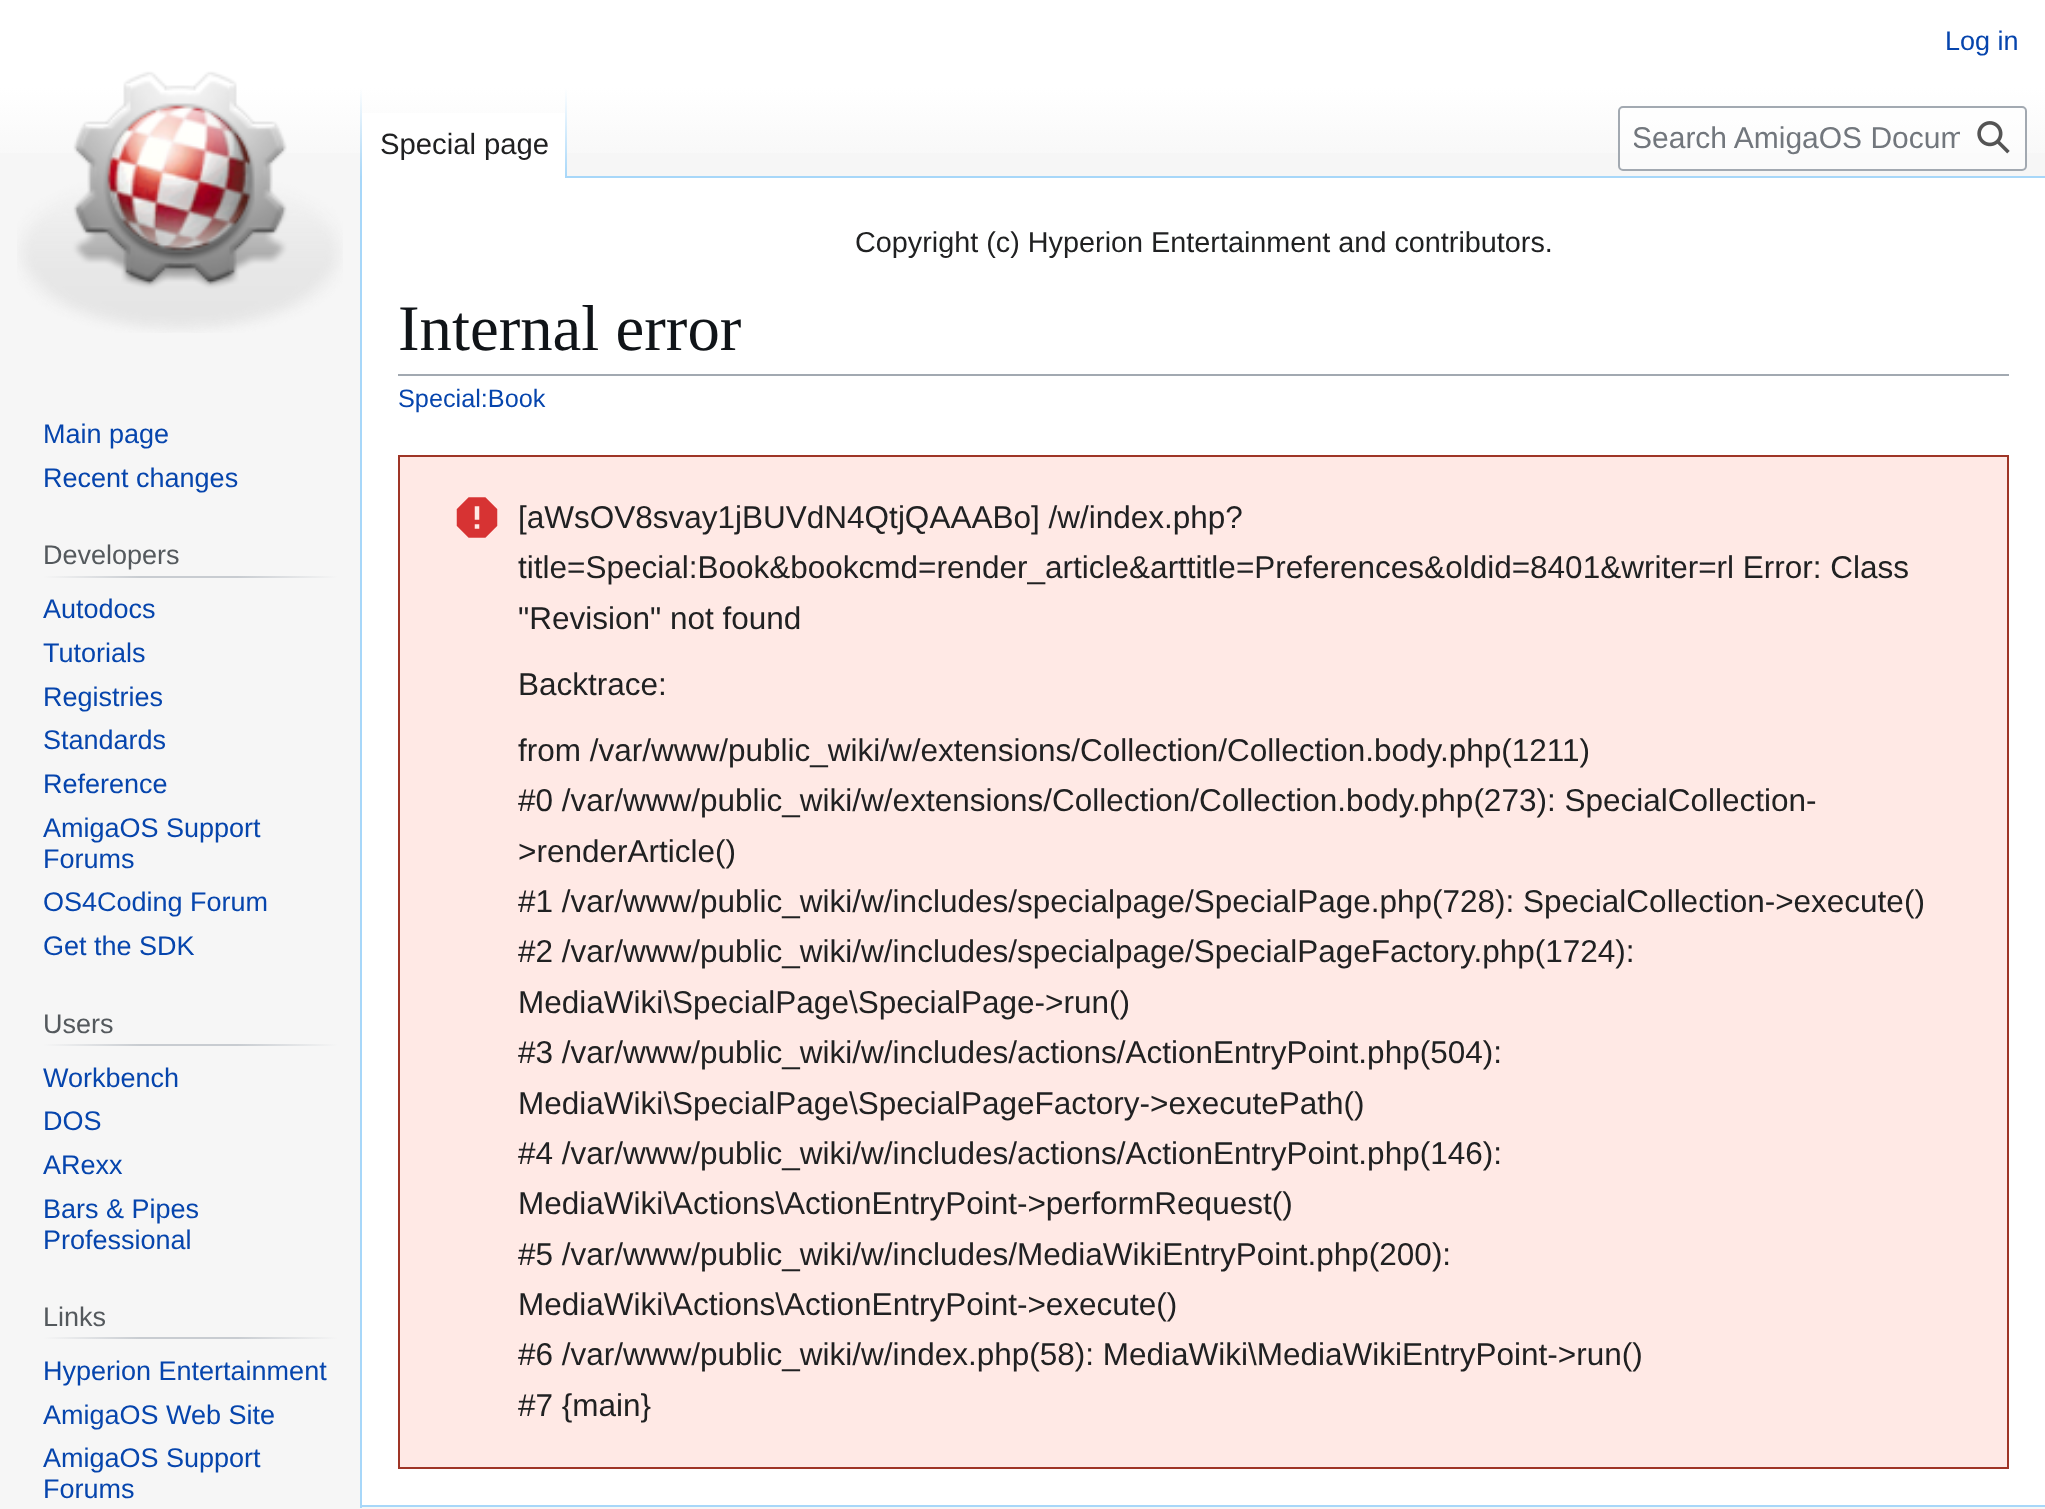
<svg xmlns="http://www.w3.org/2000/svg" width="2045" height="1509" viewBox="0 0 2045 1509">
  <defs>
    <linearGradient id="g1" gradientUnits="userSpaceOnUse" x1="1023" y1="-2.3" x2="1023" y2="178"><stop offset="0.5" stop-color="#ffffff"/><stop offset="1" stop-color="#f6f6f6"/></linearGradient>
    <linearGradient id="g2" gradientUnits="userSpaceOnUse" x1="361" y1="88" x2="361" y2="178"><stop offset="0" stop-color="#a7d7f9" stop-opacity="0"/><stop offset="1" stop-color="#a7d7f9"/></linearGradient>
    <linearGradient id="g3" gradientUnits="userSpaceOnUse" x1="566" y1="88" x2="566" y2="178"><stop offset="0" stop-color="#ffffff"/><stop offset="1" stop-color="#a7d7f9"/></linearGradient>
    <clipPath id="clip1"><rect x="1634" y="122" width="326" height="33"/></clipPath>
    <linearGradient id="g4" gradientUnits="userSpaceOnUse" x1="43" y1="577" x2="338" y2="577"><stop offset="0" stop-color="#f6f6f6"/><stop offset="0.33" stop-color="#c8ccd1"/><stop offset="0.66" stop-color="#c8ccd1"/><stop offset="1" stop-color="#f6f6f6"/></linearGradient>
    <linearGradient id="g5" gradientUnits="userSpaceOnUse" x1="43" y1="1045" x2="338" y2="1045"><stop offset="0" stop-color="#f6f6f6"/><stop offset="0.33" stop-color="#c8ccd1"/><stop offset="0.66" stop-color="#c8ccd1"/><stop offset="1" stop-color="#f6f6f6"/></linearGradient>
    <linearGradient id="g6" gradientUnits="userSpaceOnUse" x1="43" y1="1338" x2="338" y2="1338"><stop offset="0" stop-color="#f6f6f6"/><stop offset="0.33" stop-color="#c8ccd1"/><stop offset="0.66" stop-color="#c8ccd1"/><stop offset="1" stop-color="#f6f6f6"/></linearGradient>
  </defs>
  <rect width="100%" height="100%" fill="#f6f6f6"/>
  <rect x="0" y="0" width="2045" height="153" fill="url(#g1)"/>
  <text x="1945" y="50" font-family="Liberation Sans" font-size="27" fill="#0645ad">Log in</text>
  <rect x="360" y="1505" width="1685" height="2" fill="#a7d7f9"/>
  <rect x="360" y="176" width="2" height="1332" fill="#a7d7f9"/>
  <rect x="360" y="88" width="2" height="90" fill="url(#g2)"/>
  <rect x="362" y="113" width="203" height="65" fill="#ffffff"/>
  <rect x="565" y="88" width="2" height="90" fill="url(#g3)"/>
  <text x="380" y="154" font-family="Liberation Sans" font-size="29.25" fill="#202122">Special page</text>
  <rect x="1619" y="107" width="407" height="63" rx="4" fill="#ffffff" fill-opacity="0.5" stroke="#a2a9b1" stroke-width="2"/>
  <g clip-path="url(#clip1)">
    <text x="1632" y="148" font-family="Liberation Sans" font-size="30" fill="#72777d">Search AmigaOS Docum</text>
  </g>
  <image x="1977" y="121" width="33" height="33" href="img1.png"/>
  <image x="17" y="71" width="326" height="262" href="img2.png"/>
  <text x="43" y="443" font-family="Liberation Sans" font-size="27" fill="#0645ad">Main page</text>
  <text x="43" y="487" font-family="Liberation Sans" font-size="27" fill="#0645ad">Recent changes</text>
  <rect x="43" y="576" width="295" height="2" fill="url(#g4)"/>
  <text x="43" y="564" font-family="Liberation Sans" font-size="27" fill="#54595d">Developers</text>
  <text x="43" y="618" font-family="Liberation Sans" font-size="27" fill="#0645ad">Autodocs</text>
  <text x="43" y="662" font-family="Liberation Sans" font-size="27" fill="#0645ad">Tutorials</text>
  <text x="43" y="706" font-family="Liberation Sans" font-size="27" fill="#0645ad">Registries</text>
  <text x="43" y="749" font-family="Liberation Sans" font-size="27" fill="#0645ad">Standards</text>
  <text x="43" y="793" font-family="Liberation Sans" font-size="27" fill="#0645ad">Reference</text>
  <text x="43" y="837" font-family="Liberation Sans" font-size="27" fill="#0645ad">AmigaOS Support</text>
  <text x="43" y="868" font-family="Liberation Sans" font-size="27" fill="#0645ad">Forums</text>
  <text x="43" y="911" font-family="Liberation Sans" font-size="27" fill="#0645ad">OS4Coding Forum</text>
  <text x="43" y="955" font-family="Liberation Sans" font-size="27" fill="#0645ad">Get the SDK</text>
  <rect x="43" y="1044" width="295" height="2" fill="url(#g5)"/>
  <text x="43" y="1033" font-family="Liberation Sans" font-size="27" fill="#54595d">Users</text>
  <text x="43" y="1087" font-family="Liberation Sans" font-size="27" fill="#0645ad">Workbench</text>
  <text x="43" y="1130" font-family="Liberation Sans" font-size="27" fill="#0645ad">DOS</text>
  <text x="43" y="1174" font-family="Liberation Sans" font-size="27" fill="#0645ad">ARexx</text>
  <text x="43" y="1218" font-family="Liberation Sans" font-size="27" fill="#0645ad">Bars &amp; Pipes</text>
  <text x="43" y="1249" font-family="Liberation Sans" font-size="27" fill="#0645ad">Professional</text>
  <rect x="43" y="1337" width="295" height="2" fill="url(#g6)"/>
  <text x="43" y="1326" font-family="Liberation Sans" font-size="27" fill="#54595d">Links</text>
  <text x="43" y="1380" font-family="Liberation Sans" font-size="27" fill="#0645ad">Hyperion Entertainment</text>
  <text x="43" y="1424" font-family="Liberation Sans" font-size="27" fill="#0645ad">AmigaOS Web Site</text>
  <text x="43" y="1467" font-family="Liberation Sans" font-size="27" fill="#0645ad">AmigaOS Support</text>
  <text x="43" y="1498" font-family="Liberation Sans" font-size="27" fill="#0645ad">Forums</text>
  <rect x="362" y="178" width="1683" height="1327" fill="#ffffff"/>
  <rect x="567" y="176" width="1478" height="2" fill="#a7d7f9"/>
  <text x="855" y="252" font-family="Liberation Sans" font-size="28.8" fill="#202122">Copyright (c) Hyperion Entertainment and contributors.</text>
  <rect x="398" y="374" width="1611" height="2" fill="#a2a9b1"/>
  <text x="398" y="350" font-family="Liberation Serif" font-size="64.75" fill="#101418">Internal error</text>
  <text x="398" y="407" font-family="Liberation Sans" font-size="25.25" fill="#0645ad">Special:Book</text>
  <rect x="399" y="456" width="1609" height="1012" fill="#ffe9e5" stroke="#9f3526" stroke-width="2"/>
  <image x="456" y="497" width="42" height="41" href="img3.png"/>
  <text x="518" y="528" font-family="Liberation Sans" font-size="31.5" fill="#202122">[aWsOV8svay1jBUVdN4QtjQAAABo] /w/index.php?</text>
  <text x="518" y="578" font-family="Liberation Sans" font-size="31.5" fill="#202122">title=Special:Book&amp;bookcmd=render_article&amp;arttitle=Preferences&amp;oldid=8401&amp;writer=rl Error: Class</text>
  <text x="518" y="629" font-family="Liberation Sans" font-size="31.5" fill="#202122">"Revision" not found</text>
  <text x="518" y="695" font-family="Liberation Sans" font-size="31.5" fill="#202122">Backtrace:</text>
  <text x="518" y="761" font-family="Liberation Sans" font-size="31.5" fill="#202122">from /var/www/public_wiki/w/extensions/Collection/Collection.body.php(1211)</text>
  <text x="518" y="811" font-family="Liberation Sans" font-size="31.5" fill="#202122">#0 /var/www/public_wiki/w/extensions/Collection/Collection.body.php(273): SpecialCollection-</text>
  <text x="518" y="862" font-family="Liberation Sans" font-size="31.5" fill="#202122">&gt;renderArticle()</text>
  <text x="518" y="912" font-family="Liberation Sans" font-size="31.5" fill="#202122">#1 /var/www/public_wiki/w/includes/specialpage/SpecialPage.php(728): SpecialCollection-&gt;execute()</text>
  <text x="518" y="962" font-family="Liberation Sans" font-size="31.5" fill="#202122">#2 /var/www/public_wiki/w/includes/specialpage/SpecialPageFactory.php(1724):</text>
  <text x="518" y="1013" font-family="Liberation Sans" font-size="31.5" fill="#202122">MediaWiki\SpecialPage\SpecialPage-&gt;run()</text>
  <text x="518" y="1063" font-family="Liberation Sans" font-size="31.5" fill="#202122">#3 /var/www/public_wiki/w/includes/actions/ActionEntryPoint.php(504):</text>
  <text x="518" y="1114" font-family="Liberation Sans" font-size="31.5" fill="#202122">MediaWiki\SpecialPage\SpecialPageFactory-&gt;executePath()</text>
  <text x="518" y="1164" font-family="Liberation Sans" font-size="31.5" fill="#202122">#4 /var/www/public_wiki/w/includes/actions/ActionEntryPoint.php(146):</text>
  <text x="518" y="1214" font-family="Liberation Sans" font-size="31.5" fill="#202122">MediaWiki\Actions\ActionEntryPoint-&gt;performRequest()</text>
  <text x="518" y="1265" font-family="Liberation Sans" font-size="31.5" fill="#202122">#5 /var/www/public_wiki/w/includes/MediaWikiEntryPoint.php(200):</text>
  <text x="518" y="1315" font-family="Liberation Sans" font-size="31.5" fill="#202122">MediaWiki\Actions\ActionEntryPoint-&gt;execute()</text>
  <text x="518" y="1365" font-family="Liberation Sans" font-size="31.5" fill="#202122">#6 /var/www/public_wiki/w/index.php(58): MediaWiki\MediaWikiEntryPoint-&gt;run()</text>
  <text x="518" y="1416" font-family="Liberation Sans" font-size="31.5" fill="#202122">#7 {main}</text>
</svg>
